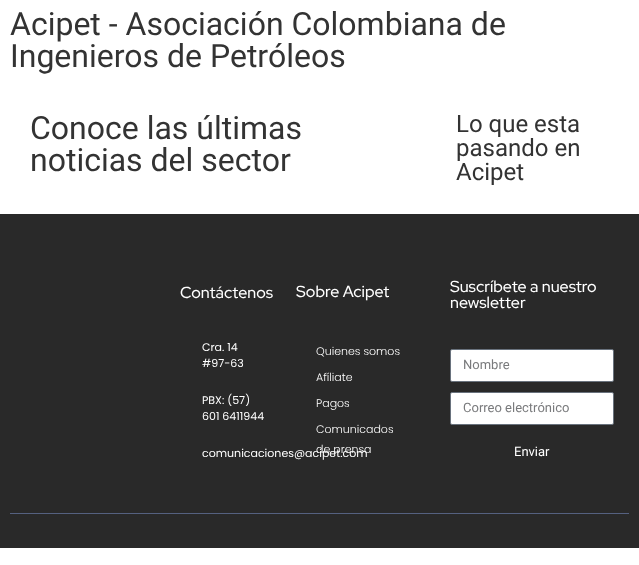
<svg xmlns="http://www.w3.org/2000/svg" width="639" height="565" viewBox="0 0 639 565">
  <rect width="100%" height="100%" fill="#ffffff"/>
  <text x="10" y="35" font-family="Roboto" font-size="32" fill="#333333">Acipet - Asociación Colombiana de</text>
  <text x="10" y="67" font-family="Roboto" font-size="32" fill="#333333">Ingenieros de Petróleos</text>
  <text x="30" y="139" font-family="Roboto" font-size="32" fill="#333333">Conoce las últimas</text>
  <text x="30" y="171" font-family="Roboto" font-size="32" fill="#333333">noticias del sector</text>
  <text x="456" y="132" font-family="Roboto" font-size="24" fill="#333333">Lo que esta</text>
  <text x="456" y="156" font-family="Roboto" font-size="24" fill="#333333">pasando en</text>
  <text x="456" y="180" font-family="Roboto" font-size="24" fill="#333333">Acipet</text>
  <rect x="0" y="214" width="639" height="334" fill="#292929"/>
  <rect x="10" y="513" width="619" height="1" fill="#556180"/>
  <text x="296" y="297" font-family="Red Hat Display" font-size="16" font-weight="500" fill="#ffffff">Sobre Acipet</text>
  <text x="316" y="355" font-family="Poppins" font-size="11" font-weight="300" fill="#ffffff">Quienes somos</text>
  <text x="316" y="381" font-family="Poppins" font-size="11" font-weight="300" fill="#ffffff">Afíliate</text>
  <text x="316" y="407" font-family="Poppins" font-size="11" font-weight="300" fill="#ffffff">Pagos</text>
  <text x="316" y="433" font-family="Poppins" font-size="11" font-weight="300" fill="#ffffff">Comunicados</text>
  <text x="202" y="457" font-family="Poppins" font-size="11" fill="#ffffff">comunicaciones@acipet.com</text>
  <text x="316" y="453" font-family="Poppins" font-size="11" font-weight="300" fill="#ffffff">de prensa</text>
  <text x="450" y="292" font-family="Red Hat Display" font-size="16" font-weight="500" fill="#ffffff">Suscríbete a nuestro</text>
  <text x="450" y="308" font-family="Red Hat Display" font-size="16" font-weight="500" fill="#ffffff">newsletter</text>
  <rect x="450.5" y="349.5" width="163" height="32" rx="1.5" fill="#ffffff" stroke="#69727d"/>
  <text x="463" y="369" font-family="Roboto" font-size="13" fill="#797a7c">Nombre</text>
  <rect x="450.5" y="392.5" width="163" height="32" rx="1.5" fill="#ffffff" stroke="#69727d"/>
  <text x="463" y="412" font-family="Roboto" font-size="13" fill="#797a7c">Correo electrónico</text>
  <text x="514" y="456" font-family="Roboto" font-size="13" fill="#ffffff">Enviar</text>
  <text x="180" y="298" font-family="Red Hat Display" font-size="16" font-weight="500" fill="#ffffff">Contáctenos</text>
  <text x="202" y="351" font-family="Poppins" font-size="11" fill="#ffffff">Cra. 14</text>
  <text x="202" y="367" font-family="Poppins" font-size="11" fill="#ffffff">#97-63</text>
  <text x="202" y="404" font-family="Poppins" font-size="11" fill="#ffffff">PBX: (57)</text>
  <text x="202" y="420" font-family="Poppins" font-size="11" fill="#ffffff">601 6411944</text>
</svg>
